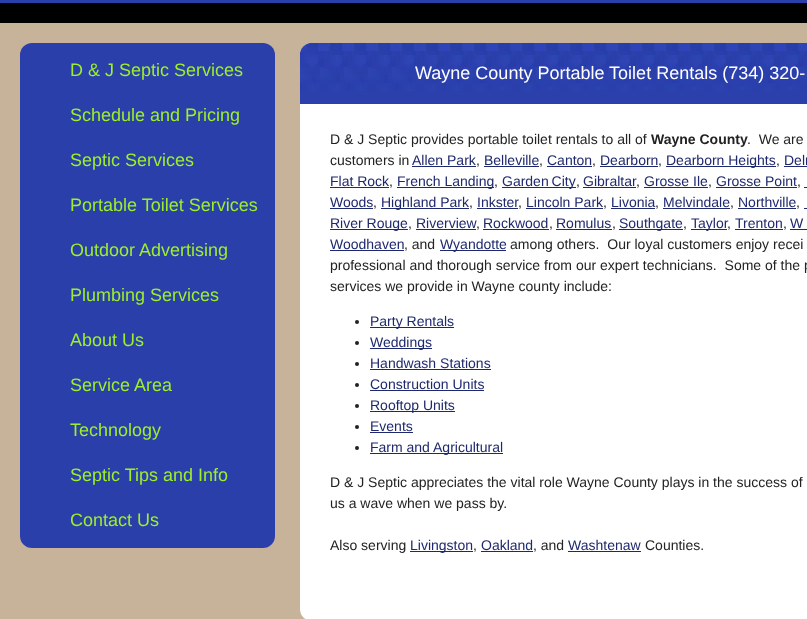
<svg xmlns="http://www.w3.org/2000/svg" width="807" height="619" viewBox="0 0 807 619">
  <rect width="100%" height="100%" fill="#000000"/>
  <rect x="0" y="0" width="807" height="3" fill="#2a3fa8"/>
  <rect x="0" y="23" width="807" height="596" fill="#c7b29a"/>
  <rect x="20" y="43" width="255" height="505" rx="12" fill="#2a3faa"/>
  <text x="70" y="76" font-family="Liberation Sans" font-size="18" fill="#9cef2b">D &amp; J Septic Services</text>
  <text x="70" y="121" font-family="Liberation Sans" font-size="18" fill="#9cef2b">Schedule and Pricing</text>
  <text x="70" y="166" font-family="Liberation Sans" font-size="18" fill="#9cef2b">Septic Services</text>
  <text x="70" y="211" font-family="Liberation Sans" font-size="18" fill="#9cef2b">Portable Toilet Services</text>
  <text x="70" y="256" font-family="Liberation Sans" font-size="18" fill="#9cef2b">Outdoor Advertising</text>
  <text x="70" y="301" font-family="Liberation Sans" font-size="18" fill="#9cef2b">Plumbing Services</text>
  <text x="70" y="346" font-family="Liberation Sans" font-size="18" fill="#9cef2b">About Us</text>
  <text x="70" y="391" font-family="Liberation Sans" font-size="18" fill="#9cef2b">Service Area</text>
  <text x="70" y="436" font-family="Liberation Sans" font-size="18" fill="#9cef2b">Technology</text>
  <text x="70" y="481" font-family="Liberation Sans" font-size="18" fill="#9cef2b">Septic Tips and Info</text>
  <text x="70" y="526" font-family="Liberation Sans" font-size="18" fill="#9cef2b">Contact Us</text>
  <rect x="300" y="43" width="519" height="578" rx="12" fill="#ffffff"/>
  <path d="M312 43H807C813.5 43 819 48.5 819 55V104H300V55C300 48.5 305.5 43 312 43Z" fill="#2b40ab"/>
  <image x="300" y="43" width="507" height="48" href="img1.png"/>
  <text x="415" y="79" font-family="Liberation Sans" font-size="18" fill="#ffffff">Wayne County Portable Toilet Rentals (734) 320-</text>
  <text x="330" y="144" font-family="Liberation Sans" font-size="14" fill="#222222">D &amp; J Septic provides portable toilet rentals to all of</text>
  <text x="651" y="144" font-family="Liberation Sans" font-size="14" font-weight="bold" fill="#222222">Wayne County</text>
  <text x="747" y="144" font-family="Liberation Sans" font-size="14" fill="#222222" xml:space="preserve">.  We are</text>
  <text x="330" y="165" font-family="Liberation Sans" font-size="14" fill="#222222">customers in</text>
  <text x="412" y="165" font-family="Liberation Sans" font-size="14" fill="#1e286d">Allen Park</text>
  <rect x="412" y="166" width="64" height="1" fill="#1e286d"/>
  <text x="476" y="165" font-family="Liberation Sans" font-size="14" fill="#222222">,</text>
  <text x="484" y="165" font-family="Liberation Sans" font-size="14" fill="#1e286d">Belleville</text>
  <rect x="484" y="166" width="55" height="1" fill="#1e286d"/>
  <text x="539" y="165" font-family="Liberation Sans" font-size="14" fill="#222222">,</text>
  <text x="547" y="165" font-family="Liberation Sans" font-size="14" fill="#1e286d">Canton</text>
  <rect x="547" y="166" width="45" height="1" fill="#1e286d"/>
  <text x="592" y="165" font-family="Liberation Sans" font-size="14" fill="#222222">,</text>
  <text x="600" y="165" font-family="Liberation Sans" font-size="14" fill="#1e286d">Dearborn</text>
  <rect x="600" y="166" width="58" height="1" fill="#1e286d"/>
  <text x="658" y="165" font-family="Liberation Sans" font-size="14" fill="#222222">,</text>
  <rect x="666" y="166" width="110" height="1" fill="#1e286d"/>
  <text x="666" y="165" font-family="Liberation Sans" font-size="14" fill="#1e286d">Dearborn Heights</text>
  <text x="776" y="165" font-family="Liberation Sans" font-size="14" fill="#222222">,</text>
  <text x="784" y="165" font-family="Liberation Sans" font-size="14" fill="#1e286d">Delr</text>
  <rect x="784" y="166" width="23" height="1" fill="#1e286d"/>
  <text x="330" y="186" font-family="Liberation Sans" font-size="14" fill="#1e286d">Flat Rock</text>
  <rect x="330" y="187" width="59" height="1" fill="#1e286d"/>
  <text x="389" y="186" font-family="Liberation Sans" font-size="14" fill="#222222">,</text>
  <rect x="397" y="187" width="97" height="1" fill="#1e286d"/>
  <text x="397" y="186" font-family="Liberation Sans" font-size="14" fill="#1e286d">French Landing</text>
  <text x="494" y="186" font-family="Liberation Sans" font-size="14" fill="#222222">,</text>
  <rect x="502" y="187" width="74" height="1" fill="#1e286d"/>
  <text x="502" y="186" word-spacing="-1" font-family="Liberation Sans" font-size="14" fill="#1e286d">Garden City</text>
  <text x="576" y="186" font-family="Liberation Sans" font-size="14" fill="#222222">,</text>
  <text x="583" y="186" font-family="Liberation Sans" font-size="14" fill="#1e286d">Gibraltar</text>
  <rect x="583" y="187" width="53" height="1" fill="#1e286d"/>
  <text x="636" y="186" font-family="Liberation Sans" font-size="14" fill="#222222">,</text>
  <text x="644" y="186" font-family="Liberation Sans" font-size="14" fill="#1e286d">Grosse Ile</text>
  <rect x="644" y="187" width="64" height="1" fill="#1e286d"/>
  <text x="708" y="186" font-family="Liberation Sans" font-size="14" fill="#222222">,</text>
  <text x="716" y="186" font-family="Liberation Sans" font-size="14" fill="#1e286d">Grosse Point</text>
  <rect x="716" y="187" width="81" height="1" fill="#1e286d"/>
  <text x="797" y="186" font-family="Liberation Sans" font-size="14" fill="#222222">,</text>
  <rect x="804" y="187" width="3" height="1" fill="#1e286d"/>
  <text x="330" y="207" font-family="Liberation Sans" font-size="14" fill="#1e286d">Woods</text>
  <rect x="330" y="208" width="43" height="1" fill="#1e286d"/>
  <text x="373" y="207" font-family="Liberation Sans" font-size="14" fill="#222222">,</text>
  <rect x="381" y="208" width="88" height="1" fill="#1e286d"/>
  <text x="381" y="207" font-family="Liberation Sans" font-size="14" fill="#1e286d">Highland Park</text>
  <text x="469" y="207" font-family="Liberation Sans" font-size="14" fill="#222222">,</text>
  <text x="477" y="207" font-family="Liberation Sans" font-size="14" fill="#1e286d">Inkster</text>
  <rect x="477" y="208" width="41" height="1" fill="#1e286d"/>
  <text x="518" y="207" font-family="Liberation Sans" font-size="14" fill="#222222">,</text>
  <text x="526" y="207" font-family="Liberation Sans" font-size="14" fill="#1e286d">Lincoln Park</text>
  <rect x="526" y="208" width="77" height="1" fill="#1e286d"/>
  <text x="603" y="207" font-family="Liberation Sans" font-size="14" fill="#222222">,</text>
  <text x="611" y="207" font-family="Liberation Sans" font-size="14" fill="#1e286d">Livonia</text>
  <rect x="611" y="208" width="44" height="1" fill="#1e286d"/>
  <text x="655" y="207" font-family="Liberation Sans" font-size="14" fill="#222222">,</text>
  <text x="663" y="207" font-family="Liberation Sans" font-size="14" fill="#1e286d">Melvindale</text>
  <rect x="663" y="208" width="67" height="1" fill="#1e286d"/>
  <text x="730" y="207" font-family="Liberation Sans" font-size="14" fill="#222222">,</text>
  <text x="738" y="207" font-family="Liberation Sans" font-size="14" fill="#1e286d">Northville</text>
  <rect x="738" y="208" width="58" height="1" fill="#1e286d"/>
  <text x="796" y="207" font-family="Liberation Sans" font-size="14" fill="#222222">,</text>
  <rect x="804" y="208" width="3" height="1" fill="#1e286d"/>
  <rect x="330" y="229" width="78" height="1" fill="#1e286d"/>
  <text x="330" y="228" font-family="Liberation Sans" font-size="14" fill="#1e286d">River Rouge</text>
  <text x="408" y="228" font-family="Liberation Sans" font-size="14" fill="#222222">,</text>
  <text x="416" y="228" font-family="Liberation Sans" font-size="14" fill="#1e286d">Riverview</text>
  <rect x="416" y="229" width="60" height="1" fill="#1e286d"/>
  <text x="476" y="228" font-family="Liberation Sans" font-size="14" fill="#222222">,</text>
  <text x="483" y="228" font-family="Liberation Sans" font-size="14" fill="#1e286d">Rockwood</text>
  <rect x="483" y="229" width="66" height="1" fill="#1e286d"/>
  <text x="549" y="228" font-family="Liberation Sans" font-size="14" fill="#222222">,</text>
  <text x="556" y="228" font-family="Liberation Sans" font-size="14" fill="#1e286d">Romulus</text>
  <rect x="556" y="229" width="56" height="1" fill="#1e286d"/>
  <text x="612" y="228" font-family="Liberation Sans" font-size="14" fill="#222222">,</text>
  <rect x="619" y="229" width="64" height="1" fill="#1e286d"/>
  <text x="619" y="228" font-family="Liberation Sans" font-size="14" fill="#1e286d">Southgate</text>
  <text x="683" y="228" font-family="Liberation Sans" font-size="14" fill="#222222">,</text>
  <rect x="691" y="229" width="36" height="1" fill="#1e286d"/>
  <text x="691" y="228" font-family="Liberation Sans" font-size="14" fill="#1e286d">Taylor</text>
  <text x="727" y="228" font-family="Liberation Sans" font-size="14" fill="#222222">,</text>
  <text x="735" y="228" font-family="Liberation Sans" font-size="14" fill="#1e286d">Trenton</text>
  <rect x="735" y="229" width="48" height="1" fill="#1e286d"/>
  <text x="783" y="228" font-family="Liberation Sans" font-size="14" fill="#222222">,</text>
  <text x="790" y="228" font-family="Liberation Sans" font-size="14" fill="#1e286d">W</text>
  <rect x="790" y="229" width="17" height="1" fill="#1e286d"/>
  <text x="330" y="249" font-family="Liberation Sans" font-size="14" fill="#1e286d">Woodhaven</text>
  <rect x="330" y="250" width="74" height="1" fill="#1e286d"/>
  <text x="404" y="249" font-family="Liberation Sans" font-size="14" fill="#222222">, and</text>
  <rect x="440" y="250" width="66" height="1" fill="#1e286d"/>
  <text x="440" y="249" font-family="Liberation Sans" font-size="14" fill="#1e286d">Wyandotte</text>
  <text x="510" y="249" font-family="Liberation Sans" font-size="14" fill="#222222" xml:space="preserve">among others.  Our loyal customers enjoy recei</text>
  <text x="330" y="270" font-family="Liberation Sans" font-size="14" fill="#222222" xml:space="preserve">professional and thorough service from our expert technicians.  Some of the p</text>
  <text x="330" y="291" font-family="Liberation Sans" font-size="14" fill="#222222">services we provide in Wayne county include:</text>
  <circle cx="357" cy="322" r="2" fill="#222222"/>
  <rect x="370" y="327" width="84" height="1" fill="#1e286d"/>
  <text x="370" y="326" font-family="Liberation Sans" font-size="14" fill="#1e286d">Party Rentals</text>
  <circle cx="357" cy="343" r="2" fill="#222222"/>
  <rect x="370" y="348" width="62" height="1" fill="#1e286d"/>
  <text x="370" y="347" font-family="Liberation Sans" font-size="14" fill="#1e286d">Weddings</text>
  <circle cx="357" cy="364" r="2" fill="#222222"/>
  <text x="370" y="368" font-family="Liberation Sans" font-size="14" fill="#1e286d">Handwash Stations</text>
  <rect x="370" y="369" width="121" height="1" fill="#1e286d"/>
  <circle cx="357" cy="385" r="2" fill="#222222"/>
  <text x="370" y="389" font-family="Liberation Sans" font-size="14" fill="#1e286d">Construction Units</text>
  <rect x="370" y="390" width="114" height="1" fill="#1e286d"/>
  <circle cx="357" cy="406" r="2" fill="#222222"/>
  <rect x="370" y="411" width="85" height="1" fill="#1e286d"/>
  <text x="370" y="410" font-family="Liberation Sans" font-size="14" fill="#1e286d">Rooftop Units</text>
  <circle cx="357" cy="427" r="2" fill="#222222"/>
  <text x="370" y="431" font-family="Liberation Sans" font-size="14" fill="#1e286d">Events</text>
  <rect x="370" y="432" width="43" height="1" fill="#1e286d"/>
  <circle cx="357" cy="448" r="2" fill="#222222"/>
  <rect x="370" y="453" width="133" height="1" fill="#1e286d"/>
  <text x="370" y="452" font-family="Liberation Sans" font-size="14" fill="#1e286d">Farm and Agricultural</text>
  <text x="330" y="487" font-family="Liberation Sans" font-size="14" fill="#222222">D &amp; J Septic appreciates the vital role Wayne County plays in the success of</text>
  <text x="330" y="508" font-family="Liberation Sans" font-size="14" fill="#222222">us a wave when we pass by.</text>
  <text x="330" y="550" font-family="Liberation Sans" font-size="14" fill="#222222">Also serving</text>
  <rect x="410" y="551" width="63" height="1" fill="#1e286d"/>
  <text x="410" y="550" font-family="Liberation Sans" font-size="14" fill="#1e286d">Livingston</text>
  <text x="473" y="550" font-family="Liberation Sans" font-size="14" fill="#222222">,</text>
  <text x="481" y="550" font-family="Liberation Sans" font-size="14" fill="#1e286d">Oakland</text>
  <rect x="481" y="551" width="52" height="1" fill="#1e286d"/>
  <text x="533" y="550" font-family="Liberation Sans" font-size="14" fill="#222222">, and</text>
  <text x="568" y="550" font-family="Liberation Sans" font-size="14" fill="#1e286d">Washtenaw</text>
  <rect x="568" y="551" width="73" height="1" fill="#1e286d"/>
  <text x="645" y="550" font-family="Liberation Sans" font-size="14" fill="#222222">Counties.</text>
</svg>
